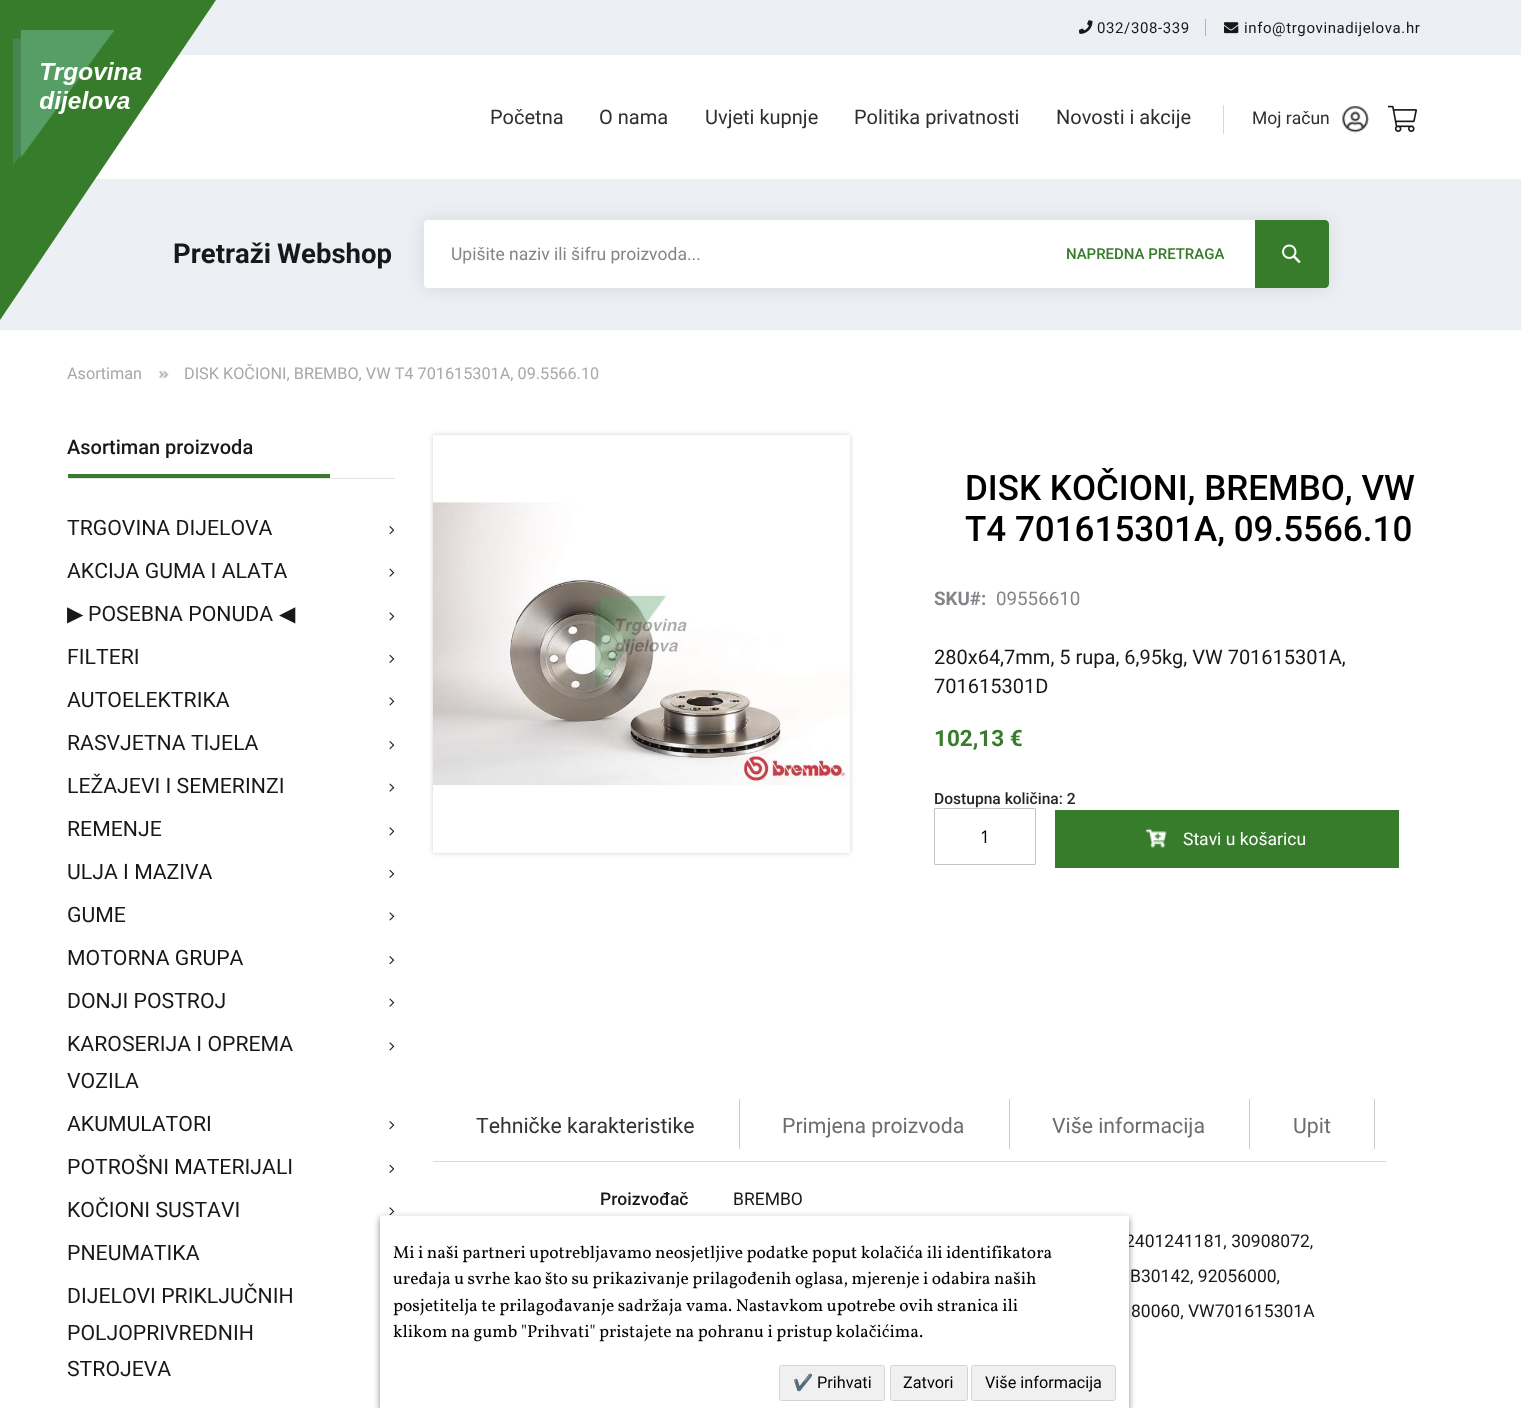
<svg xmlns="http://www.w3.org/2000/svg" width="1521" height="1408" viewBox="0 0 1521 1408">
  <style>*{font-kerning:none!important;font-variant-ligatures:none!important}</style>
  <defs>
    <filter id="blur1" x="-50%" y="-200%" width="200%" height="500%"><feGaussianBlur stdDeviation="9"/></filter>
    <clipPath id="clip1"><path d="M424 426H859V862H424ZM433 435H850V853H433Z" clip-rule="evenodd"/></clipPath>
    <filter id="blur2" x="-50%" y="-200%" width="200%" height="500%"><feGaussianBlur stdDeviation="2.5"/></filter>
    <filter id="blur3" x="-50%" y="-200%" width="200%" height="500%"><feGaussianBlur stdDeviation="3"/></filter>
  </defs>
  <rect width="100%" height="100%" fill="#ffffff"/>
  <rect x="178" y="0" width="1343" height="55" fill="#eceff3"/>
  <rect x="0" y="179" width="1521" height="151" fill="#eceff3"/>
  <path d="M0 0H216L0 320Z" fill="#367c2b"/>
  <rect x="1205" y="19" width="1" height="17" fill="#b1b4b9"/>
  <image x="1079" y="20" width="14" height="14" href="img1.png"/>
  <text x="1097" y="33" font-family="Roboto" font-size="15" letter-spacing="0.6" fill="#171819">032/308-339</text>
  <image x="1224" y="22" width="15" height="12" href="img2.png"/>
  <text x="1244" y="33" font-family="Roboto" font-size="15" letter-spacing="0.6" fill="#171819">info@trgovinadijelova.hr</text>
  <image x="13" y="30" width="129" height="135" href="img3.png"/>
  <rect x="1223" y="105" width="1" height="29" fill="#d8d8d8"/>
  <text x="490" y="124" font-family="Roboto" font-size="20" fill="#2c2f32">Početna</text>
  <text x="599" y="124" font-family="Roboto" font-size="20" fill="#2c2f32">O nama</text>
  <text x="705" y="124" font-family="Roboto" font-size="20" fill="#2c2f32">Uvjeti kupnje</text>
  <text x="854" y="124" font-family="Roboto" font-size="20" fill="#2c2f32">Politika privatnosti</text>
  <text x="1056" y="124" font-family="Roboto" font-size="20" fill="#2c2f32">Novosti i akcije</text>
  <text x="1252" y="124" font-family="Roboto" font-size="17.5" fill="#2c2f32">Moj račun</text>
  <image x="1342" y="106" width="27" height="27" href="img4.png"/>
  <image x="1388" y="105" width="29" height="27" href="img5.png"/>
  <text x="173" y="263" font-family="Roboto" font-size="27.5" font-weight="bold" fill="#171819">Pretraži</text>
  <text x="277" y="263" font-family="Roboto" font-size="27.5" font-weight="bold" fill="#171819">Webshop</text>
  <rect x="424" y="220" width="905" height="68" rx="4" fill="#000000" fill-opacity="0.1" filter="url(#blur1)"/>
  <rect x="424" y="220" width="905" height="68" rx="4" fill="#ffffff"/>
  <text x="451" y="260" font-family="Roboto" font-size="17.5" fill="#838588">Upišite naziv ili šifru proizvoda...</text>
  <text x="1066" y="259" font-family="Roboto" font-size="15" font-weight="500" fill="#367c2b">NAPREDNA PRETRAGA</text>
  <path d="M1255 220H1325C1327 220 1329 222 1329 224V284C1329 286 1327 288 1325 288H1255Z" fill="#367c2b"/>
  <image x="1282" y="244" width="19" height="19" href="img6.png"/>
  <text x="67" y="379" font-family="Roboto" font-size="16.25" fill="#a7a8aa">Asortiman</text>
  <image x="158" y="370" width="11" height="9" href="img7.png"/>
  <text x="184" y="379" font-family="Roboto" font-size="16.25" fill="#a7a8aa">DISK KOČIONI, BREMBO, VW T4 701615301A, 09.5566.10</text>
  <rect x="68" y="474" width="262" height="4" fill="#367c2b"/>
  <text x="67" y="454" font-family="Roboto" font-size="20" font-weight="500" fill="#171819">Asortiman proizvoda</text>
  <rect x="68" y="478" width="327" height="1" fill="#e3e3e3"/>
  <text x="67" y="535" font-family="Roboto" font-size="21.25" fill="#171819">TRGOVINA DIJELOVA</text>
  <image x="389" y="526" width="6" height="9" href="img8.png"/>
  <text x="67" y="578" font-family="Roboto" font-size="21.25" fill="#171819">AKCIJA GUMA I ALATA</text>
  <image x="389" y="568" width="6" height="9" href="img9.png"/>
  <text x="67" y="621" font-family="DejaVu Sans" font-size="21.25" fill="#171819">▶</text>
  <text x="88" y="621" font-family="Roboto" font-size="21.25" fill="#171819">POSEBNA PONUDA</text>
  <text x="279" y="621" font-family="DejaVu Sans" font-size="21.25" fill="#171819">◀</text>
  <image x="389" y="612" width="6" height="9" href="img10.png"/>
  <text x="67" y="664" font-family="Roboto" font-size="21.25" fill="#171819">FILTERI</text>
  <image x="389" y="654" width="6" height="9" href="img11.png"/>
  <text x="67" y="707" font-family="Roboto" font-size="21.25" fill="#171819">AUTOELEKTRIKA</text>
  <image x="389" y="697" width="6" height="9" href="img10.png"/>
  <text x="67" y="750" font-family="Roboto" font-size="21.25" fill="#171819">RASVJETNA TIJELA</text>
  <image x="389" y="741" width="6" height="9" href="img8.png"/>
  <text x="67" y="793" font-family="Roboto" font-size="21.25" fill="#171819">LEŽAJEVI I SEMERINZI</text>
  <image x="389" y="783" width="6" height="9" href="img9.png"/>
  <text x="67" y="836" font-family="Roboto" font-size="21.25" fill="#171819">REMENJE</text>
  <image x="389" y="827" width="6" height="9" href="img10.png"/>
  <text x="67" y="879" font-family="Roboto" font-size="21.25" fill="#171819">ULJA I MAZIVA</text>
  <image x="389" y="869" width="6" height="9" href="img11.png"/>
  <text x="67" y="922" font-family="Roboto" font-size="21.25" fill="#171819">GUME</text>
  <image x="389" y="912" width="6" height="9" href="img10.png"/>
  <text x="67" y="965" font-family="Roboto" font-size="21.25" fill="#171819">MOTORNA GRUPA</text>
  <image x="389" y="956" width="6" height="9" href="img8.png"/>
  <text x="67" y="1008" font-family="Roboto" font-size="21.25" fill="#171819">DONJI POSTROJ</text>
  <image x="389" y="998" width="6" height="9" href="img9.png"/>
  <text x="67" y="1051" font-family="Roboto" font-size="21.25" fill="#171819">KAROSERIJA I OPREMA</text>
  <text x="67" y="1088" font-family="Roboto" font-size="21.25" fill="#171819">VOZILA</text>
  <image x="389" y="1042" width="6" height="9" href="img10.png"/>
  <text x="67" y="1131" font-family="Roboto" font-size="21.25" fill="#171819">AKUMULATORI</text>
  <image x="389" y="1121" width="6" height="9" href="img8.png"/>
  <text x="67" y="1174" font-family="Roboto" font-size="21.25" fill="#171819">POTROŠNI MATERIJALI</text>
  <image x="389" y="1164" width="6" height="9" href="img11.png"/>
  <text x="67" y="1217" font-family="Roboto" font-size="21.25" fill="#171819">KOČIONI SUSTAVI</text>
  <image x="389" y="1207" width="6" height="8" href="img12.png"/>
  <text x="67" y="1260" font-family="Roboto" font-size="21.25" fill="#171819">PNEUMATIKA</text>
  <text x="67" y="1303" font-family="Roboto" font-size="21.25" fill="#171819">DIJELOVI PRIKLJUČNIH</text>
  <text x="67" y="1340" font-family="Roboto" font-size="21.25" fill="#171819">POLJOPRIVREDNIH</text>
  <text x="67" y="1376" font-family="Roboto" font-size="21.25" fill="#171819">STROJEVA</text>
  <g clip-path="url(#clip1)">
    <rect x="433" y="435" width="417" height="418" fill="#000000" fill-opacity="0.18" filter="url(#blur2)"/>
  </g>
  <image x="433" y="502" width="417" height="351" href="img13.png"/>
  <text x="965" y="500" font-family="Roboto" font-size="35" font-weight="500" fill="#000000">DISK KOČIONI, BREMBO, VW</text>
  <text x="965" y="541" font-family="Roboto" font-size="35" font-weight="500" fill="#000000">T4 701615301A, 09.5566.10</text>
  <text x="934" y="605" font-family="Roboto" font-size="18.75" font-weight="bold" fill="#838588">SKU#:</text>
  <text x="996" y="605" font-family="Roboto" font-size="18.75" fill="#838588">09556610</text>
  <text x="934" y="664" font-family="Roboto" font-size="20" fill="#171819">280x64,7mm, 5 rupa, 6,95kg, VW 701615301A,</text>
  <text x="934" y="693" font-family="Roboto" font-size="20" fill="#171819">701615301D</text>
  <text x="934" y="746" font-family="Roboto" font-size="22.5" font-weight="bold" fill="#367c2b">102,13 €</text>
  <text x="934" y="804" font-family="Roboto" font-size="15.6" font-weight="500" fill="#212529">Dostupna količina: 2</text>
  <rect x="934.5" y="808.5" width="101" height="56" rx="0.5" fill="none" stroke="#c2c2c2"/>
  <text x="980" y="843" font-family="Open Sans" font-size="17.5" fill="#000000">1</text>
  <rect x="1055" y="810" width="344" height="58" fill="#367c2b"/>
  <image x="1146" y="828" width="21" height="20" href="img14.png"/>
  <text x="1183" y="845" font-family="Roboto" font-size="17.5" fill="#ffffff">Stavi u košaricu</text>
  <rect x="739" y="1099" width="1" height="50" fill="#cccccc"/>
  <text x="476" y="1133" font-family="Roboto" font-size="21.25" fill="#333333">Tehničke karakteristike</text>
  <rect x="1009" y="1099" width="1" height="50" fill="#cccccc"/>
  <text x="782" y="1133" font-family="Roboto" font-size="21.25" fill="#6d6d6d">Primjena proizvoda</text>
  <rect x="1249" y="1099" width="1" height="50" fill="#cccccc"/>
  <text x="1052" y="1133" font-family="Roboto" font-size="21.25" fill="#6d6d6d">Više informacija</text>
  <rect x="1374" y="1099" width="1" height="50" fill="#cccccc"/>
  <text x="1293" y="1133" font-family="Roboto" font-size="21.25" fill="#6d6d6d">Upit</text>
  <rect x="433" y="1161" width="953" height="1" fill="#d8d8d8"/>
  <text x="600" y="1205" font-family="Roboto" font-size="17.5" font-weight="500" fill="#171819">Proizvođač</text>
  <text x="733" y="1205" font-family="Roboto" font-size="17.5" fill="#171819">BREMBO</text>
  <text x="1125" y="1247" font-family="Roboto" font-size="17.5" fill="#171819">2401241181, 30908072,</text>
  <text x="1130" y="1282" font-family="Roboto" font-size="17.5" fill="#171819">B30142, 92056000,</text>
  <text x="1131" y="1317" font-family="Roboto" font-size="17.5" fill="#171819">80060, VW701615301A</text>
  <rect x="380" y="1218" width="749" height="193" fill="#000000" fill-opacity="0.47" filter="url(#blur3)"/>
  <rect x="380" y="1216" width="749" height="192" fill="#ffffff"/>
  <rect x="380" y="1215" width="749" height="1" fill="#f0f0f0"/>
  <text x="393" y="1258" font-family="Vollkorn" font-size="17.5" fill="#000000">Mi i naši partneri upotrebljavamo neosjetljive podatke poput kolačića ili identifikatora</text>
  <text x="393" y="1284" font-family="Vollkorn" font-size="17.5" fill="#000000">uređaja u svrhe kao što su prikazivanje prilagođenih oglasa, mjerenje i odabira naših</text>
  <text x="393" y="1311" font-family="Vollkorn" font-size="17.5" fill="#000000">posjetitelja te prilagođavanje sadržaja vama. Nastavkom upotrebe ovih stranica ili</text>
  <text x="393" y="1337" font-family="Vollkorn" font-size="17.5" fill="#000000">klikom na gumb "Prihvati" pristajete na pohranu i pristup kolačićima.</text>
  <rect x="779.5" y="1365.5" width="105" height="35" rx="2" fill="#f0f0f0" stroke="#d4d4d4"/>
  <text x="793" y="1388" font-family="Noto Color Emoji" font-size="16.25" fill="#000000">✔</text>
  <text x="817" y="1388" font-family="Roboto" font-size="16.25" fill="#000000">Prihvati</text>
  <rect x="890.5" y="1365.5" width="77" height="35" rx="2" fill="#f0f0f0" stroke="#d4d4d4"/>
  <text x="903" y="1388" font-family="Roboto" font-size="16.25" fill="#000000">Zatvori</text>
  <rect x="971.5" y="1365.5" width="144" height="35" rx="2" fill="#f0f0f0" stroke="#d4d4d4"/>
  <text x="985" y="1388" font-family="Roboto" font-size="16.25" fill="#000000">Više informacija</text>
</svg>
